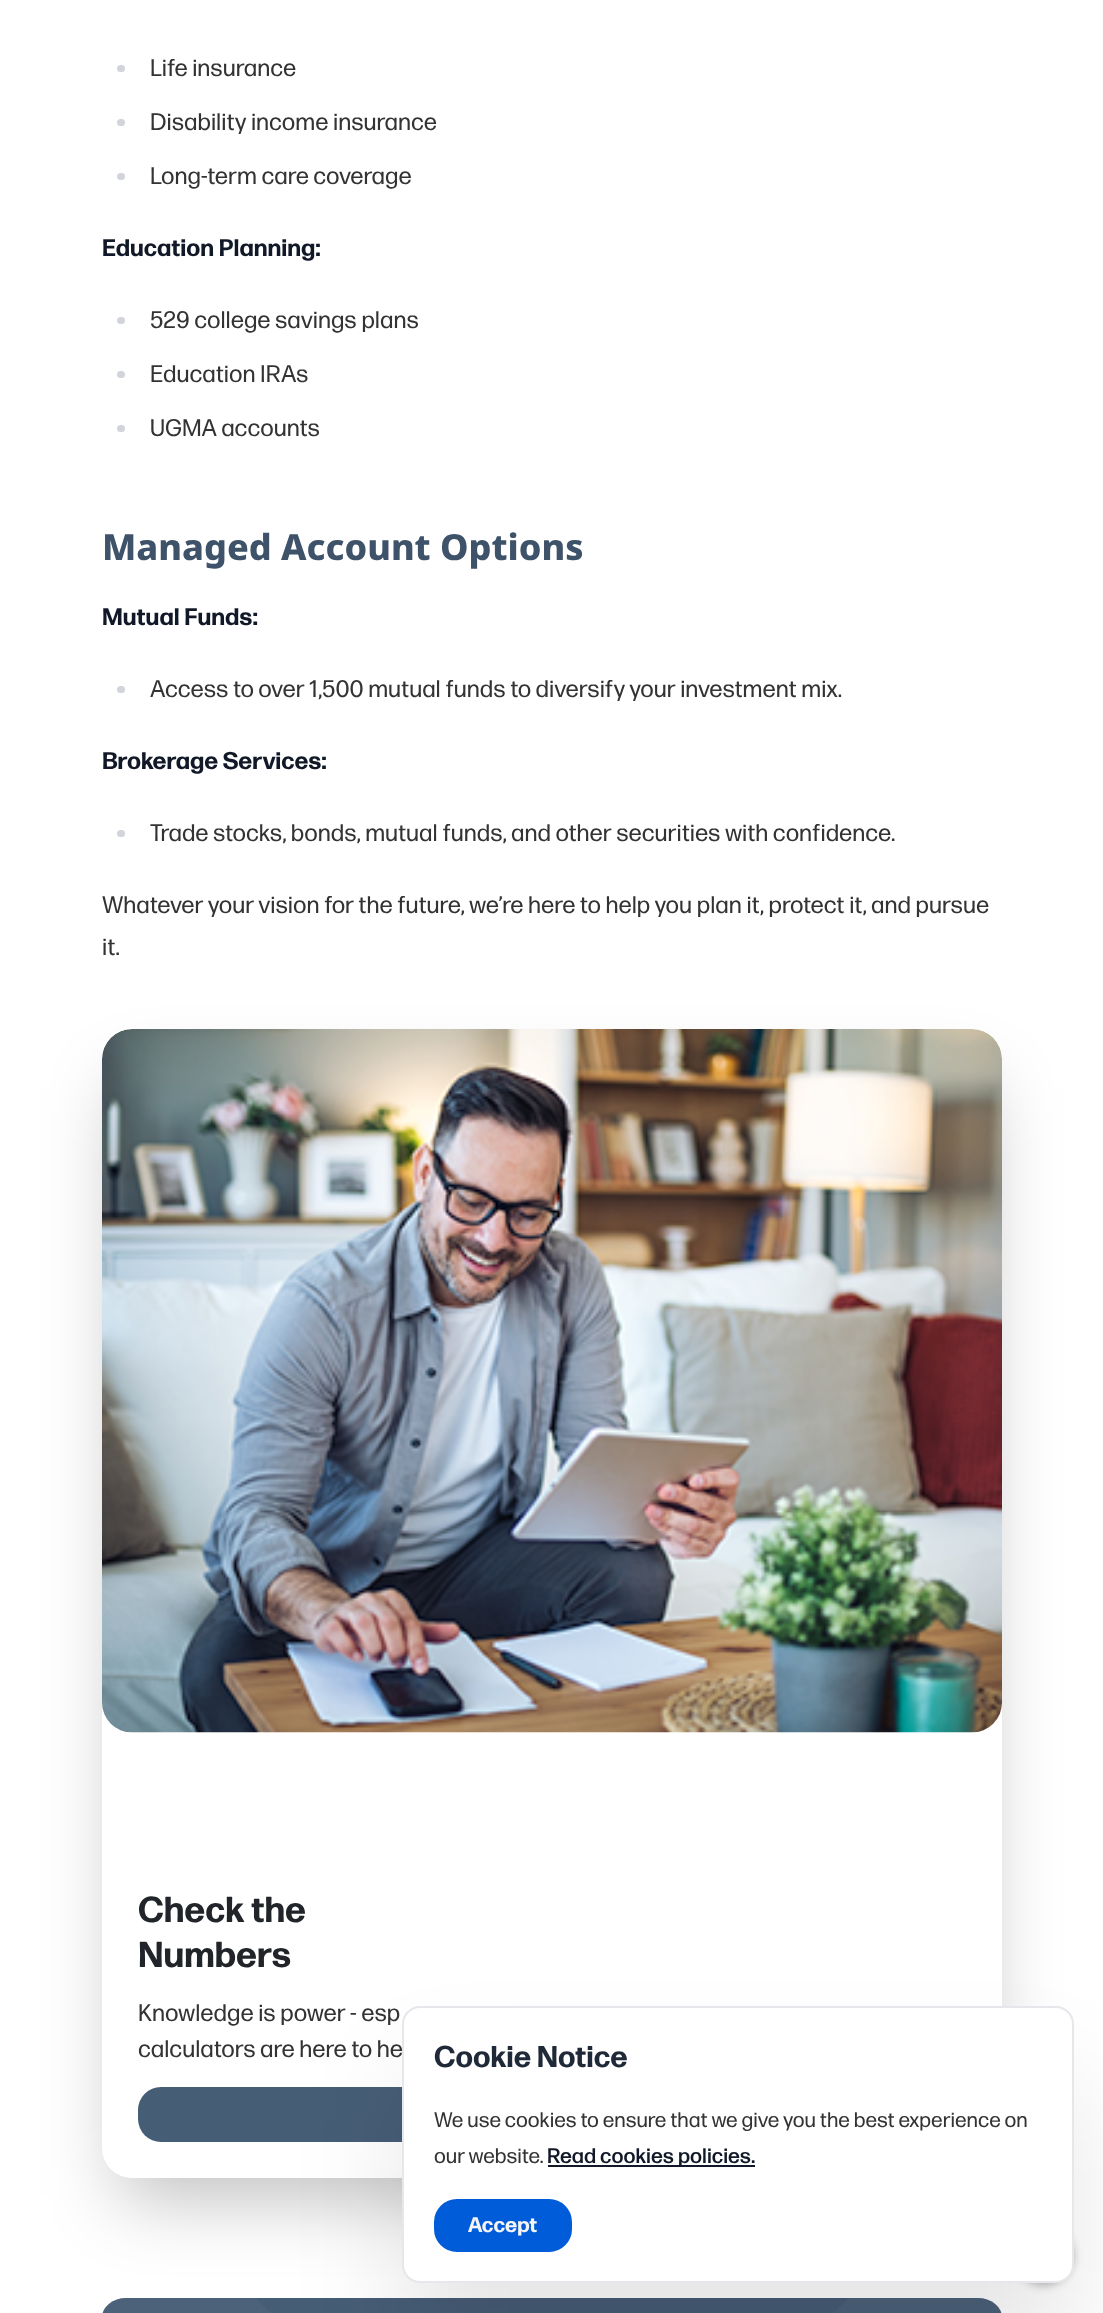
<svg xmlns="http://www.w3.org/2000/svg" width="1103" height="2313" viewBox="0 0 1103 2313">
  <defs>
    <filter id="blur1" x="-50%" y="-200%" width="200%" height="500%"><feGaussianBlur stdDeviation="37.5"/></filter>
    <filter id="blur2" x="-50%" y="-200%" width="200%" height="500%"><feGaussianBlur stdDeviation="54"/></filter>
    <filter id="blur3" x="-50%" y="-200%" width="200%" height="500%"><feGaussianBlur stdDeviation="4"/></filter>
  </defs>
  <rect width="100%" height="100%" fill="#ffffff"/>
  <rect x="117" y="65" width="8" height="7" rx="3.5" fill="#d1d5db"/>
  <text x="150" y="76" font-family="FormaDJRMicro" font-size="24" fill="#333333">Life insurance</text>
  <rect x="117" y="119" width="8" height="7" rx="3.5" fill="#d1d5db"/>
  <text x="150" y="130" font-family="FormaDJRMicro" font-size="24" fill="#333333">Disability income insurance</text>
  <rect x="117" y="173" width="8" height="7" rx="3.5" fill="#d1d5db"/>
  <text x="150" y="184" font-family="FormaDJRMicro" font-size="24" fill="#333333">Long-term care coverage</text>
  <text x="102" y="256" font-family="FormaDJRMicro" font-size="24" font-weight="bold" fill="#111827">Education Planning:</text>
  <rect x="117" y="317" width="8" height="7" rx="3.5" fill="#d1d5db"/>
  <text x="150" y="328" font-family="FormaDJRMicro" font-size="24" fill="#333333">529 college savings plans</text>
  <rect x="117" y="371" width="8" height="7" rx="3.5" fill="#d1d5db"/>
  <text x="150" y="382" font-family="FormaDJRMicro" font-size="24" fill="#333333">Education IRAs</text>
  <rect x="117" y="425" width="8" height="7" rx="3.5" fill="#d1d5db"/>
  <text x="150" y="436" font-family="FormaDJRMicro" font-size="24" fill="#333333">UGMA accounts</text>
  <text x="102" y="560" font-family="Noto Sans" font-size="36" font-weight="800" fill="#3e5369">Managed Account Options</text>
  <text x="102" y="625" font-family="FormaDJRMicro" font-size="24" font-weight="bold" fill="#111827">Mutual Funds:</text>
  <rect x="117" y="686" width="8" height="7" rx="3.5" fill="#d1d5db"/>
  <text x="150" y="697" font-family="FormaDJRMicro" font-size="24" fill="#333333">Access to over 1,500 mutual funds to diversify your investment mix.</text>
  <text x="102" y="769" font-family="FormaDJRMicro" font-size="24" font-weight="bold" fill="#111827">Brokerage Services:</text>
  <rect x="117" y="830" width="8" height="7" rx="3.5" fill="#d1d5db"/>
  <text x="150" y="841" font-family="FormaDJRMicro" font-size="24" fill="#333333">Trade stocks, bonds, mutual funds, and other securities with confidence.</text>
  <text x="102" y="913" font-family="FormaDJRMicro" font-size="24" fill="#333333">Whatever your vision for the future, we’re here to help you plan it, protect it, and pursue</text>
  <text x="102" y="955" font-family="FormaDJRMicro" font-size="24" fill="#333333">it.</text>
  <rect x="120" y="1085" width="864" height="1113" rx="12" fill="#000000" fill-opacity="0.25" filter="url(#blur1)"/>
  <rect x="102" y="1029" width="900" height="1149" rx="30" fill="#ffffff"/>
  <image x="102" y="1029" width="900" height="704" href="img1.png"/>
  <text x="138" y="1922" font-family="FormaDJRMicro" font-size="36" font-weight="bold" fill="#212529">Check the</text>
  <text x="138" y="1967" font-family="FormaDJRMicro" font-size="36" font-weight="bold" fill="#212529">Numbers</text>
  <text x="138" y="2021" font-family="FormaDJRMicro" font-size="24" fill="#333333">Knowledge is power - esp</text>
  <text x="138" y="2057" font-family="FormaDJRMicro" font-size="24" fill="#333333">calculators are here to he</text>
  <rect x="138" y="2087" width="828" height="55" rx="23" fill="#465d76"/>
  <rect x="102" y="2298" width="900" height="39" rx="24" fill="#465d76"/>
  <path d="M-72 1971L430 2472C437 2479 437 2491 430 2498L-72 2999C-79 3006-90 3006-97 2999L-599 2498C-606 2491-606 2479-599 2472L-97 1971C-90 1964-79 1964-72 1971Z" fill="#ffffff" fill-opacity="0.03"/>
  <path d="M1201 1971L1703 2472C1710 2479 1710 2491 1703 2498L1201 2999C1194 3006 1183 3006 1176 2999L674 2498C667 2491 667 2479 674 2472L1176 1971C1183 1964 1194 1964 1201 1971Z" fill="#ffffff" fill-opacity="0.03"/>
  <rect x="405" y="2084" width="666" height="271" rx="15" fill="#000000" fill-opacity="0.1" filter="url(#blur2)"/>
  <rect x="1014" y="2226" width="60" height="60" rx="30" fill="#000000" fill-opacity="0.26" filter="url(#blur3)"/>
  <rect x="403" y="2007" width="670" height="275" rx="17" fill="#ffffff" stroke="#e5e7eb" stroke-width="2"/>
  <text x="434" y="2067" font-family="FormaDJRMicro" font-size="30" font-weight="bold" fill="#1f2937">Cookie Notice</text>
  <text x="434" y="2127" font-family="FormaDJRMicro" font-size="21" fill="#333333">We use cookies to ensure that we give you the best experience on</text>
  <text x="434" y="2163" font-family="FormaDJRMicro" font-size="21" fill="#333333">our website.</text>
  <rect x="548" y="2165" width="207" height="2" fill="#111827"/>
  <text x="547" y="2163" font-family="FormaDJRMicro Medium" font-size="21" font-weight="500" fill="#111827">Read cookies policies.</text>
  <rect x="435" y="2200" width="136" height="51" rx="22" fill="#005cd9" stroke="#005cd9" stroke-width="2"/>
  <text x="468" y="2232" font-family="FormaDJRMicro" font-size="21" font-weight="bold" fill="#f5f5f5">Accept</text>
</svg>
